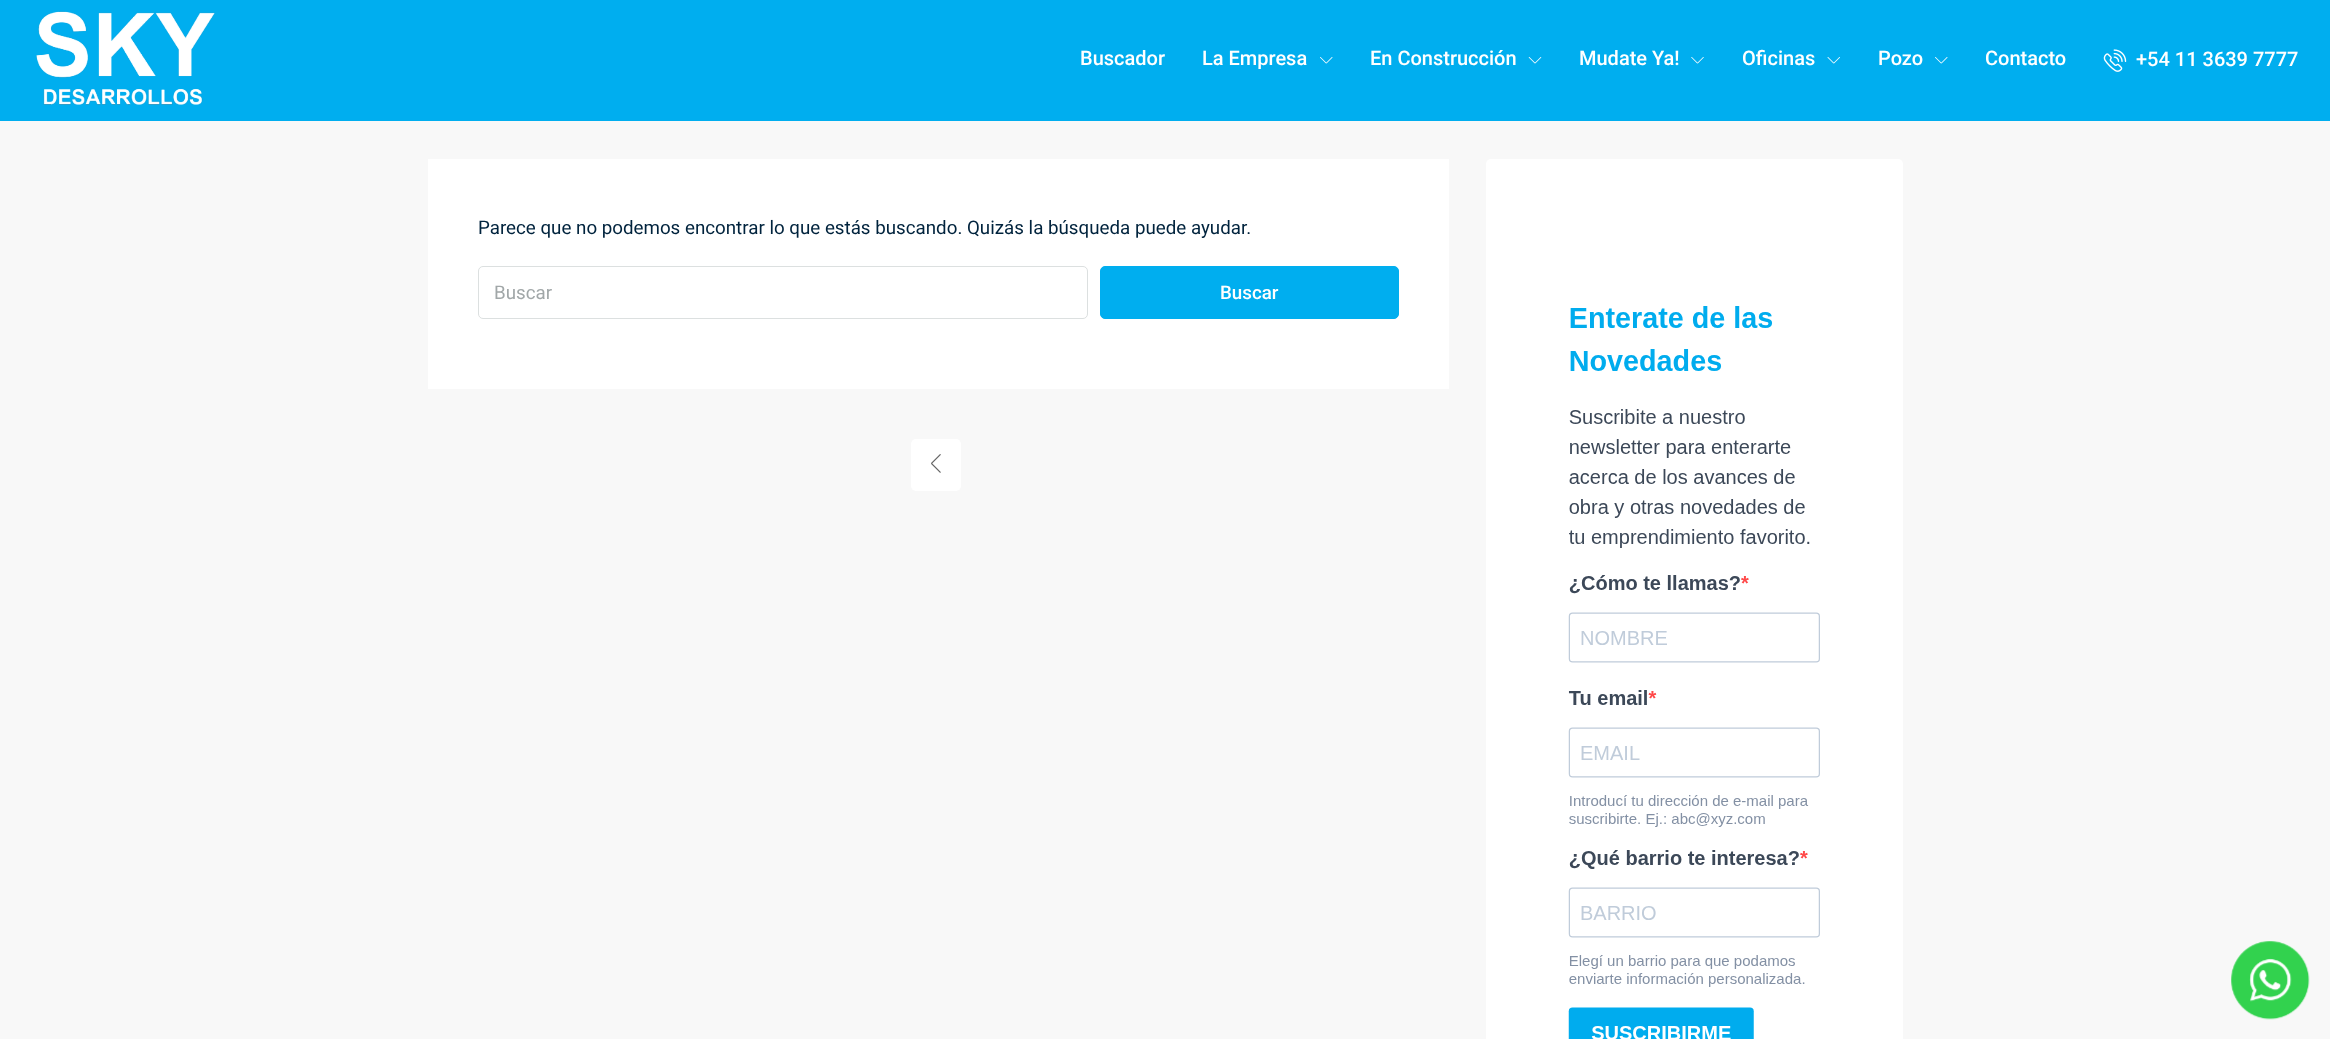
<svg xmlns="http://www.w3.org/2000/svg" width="2330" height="1039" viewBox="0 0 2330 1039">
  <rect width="100%" height="100%" fill="#f8f8f8"/>
  <rect x="0" y="0" width="2330" height="121" fill="#00aeef"/>
  <image x="36" y="11" width="179" height="94" href="img1.png"/>
  <text x="1080" y="65" font-family="Roboto" font-size="20" font-weight="500" fill="#ffffff">Buscador</text>
  <text x="1202" y="65" font-family="Roboto" font-size="20" font-weight="500" fill="#ffffff">La Empresa</text>
  <image x="1320" y="57" width="13" height="7" href="img2.png"/>
  <text x="1370" y="65" font-family="Roboto" font-size="20" font-weight="500" fill="#ffffff">En Construcción</text>
  <image x="1528" y="57" width="14" height="7" href="img3.png"/>
  <text x="1579" y="65" font-family="Roboto" font-size="20" font-weight="500" fill="#ffffff">Mudate Ya!</text>
  <image x="1691" y="57" width="13" height="7" href="img4.png"/>
  <text x="1742" y="65" font-family="Roboto" font-size="20" font-weight="500" fill="#ffffff">Oficinas</text>
  <image x="1827" y="57" width="13" height="7" href="img5.png"/>
  <text x="1878" y="65" font-family="Roboto" font-size="20" font-weight="500" fill="#ffffff">Pozo</text>
  <image x="1935" y="57" width="13" height="7" href="img2.png"/>
  <text x="1985" y="65" font-family="Roboto" font-size="20" font-weight="500" fill="#ffffff">Contacto</text>
  <image x="2103" y="49" width="24" height="23" href="img6.png"/>
  <text x="2136" y="66" font-family="Roboto" font-size="20" font-weight="500" fill="#ffffff">+54 11 3639 7777</text>
  <rect x="428" y="159" width="1021" height="230" fill="#ffffff"/>
  <text x="478" y="234" font-family="Roboto" font-size="18.75" fill="#00233d">Parece que no podemos encontrar lo que estás buscando. Quizás la búsqueda puede ayudar.</text>
  <rect x="478.5" y="266.5" width="609" height="52" rx="4.5" fill="none" stroke="#dce0e0"/>
  <text x="494" y="299" font-family="Roboto" font-size="18.75" fill="#a1a7a8">Buscar</text>
  <rect x="1100.5" y="266.5" width="298" height="52" rx="4.5" fill="#00aeef" stroke="#00aeef"/>
  <text x="1220" y="299" font-family="Roboto" font-size="18.75" font-weight="500" fill="#ffffff">Buscar</text>
  <rect x="911" y="439" width="50" height="52" rx="5" fill="#ffffff"/>
  <image x="931" y="454" width="10" height="19" href="img7.png"/>
  <rect x="1486" y="159" width="417" height="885" rx="5" fill="#ffffff"/>
  <image x="1568" y="306" width="252" height="733" href="img8.png"/>
  <image x="2231" y="941" width="79" height="79" href="img9.png"/>
</svg>
